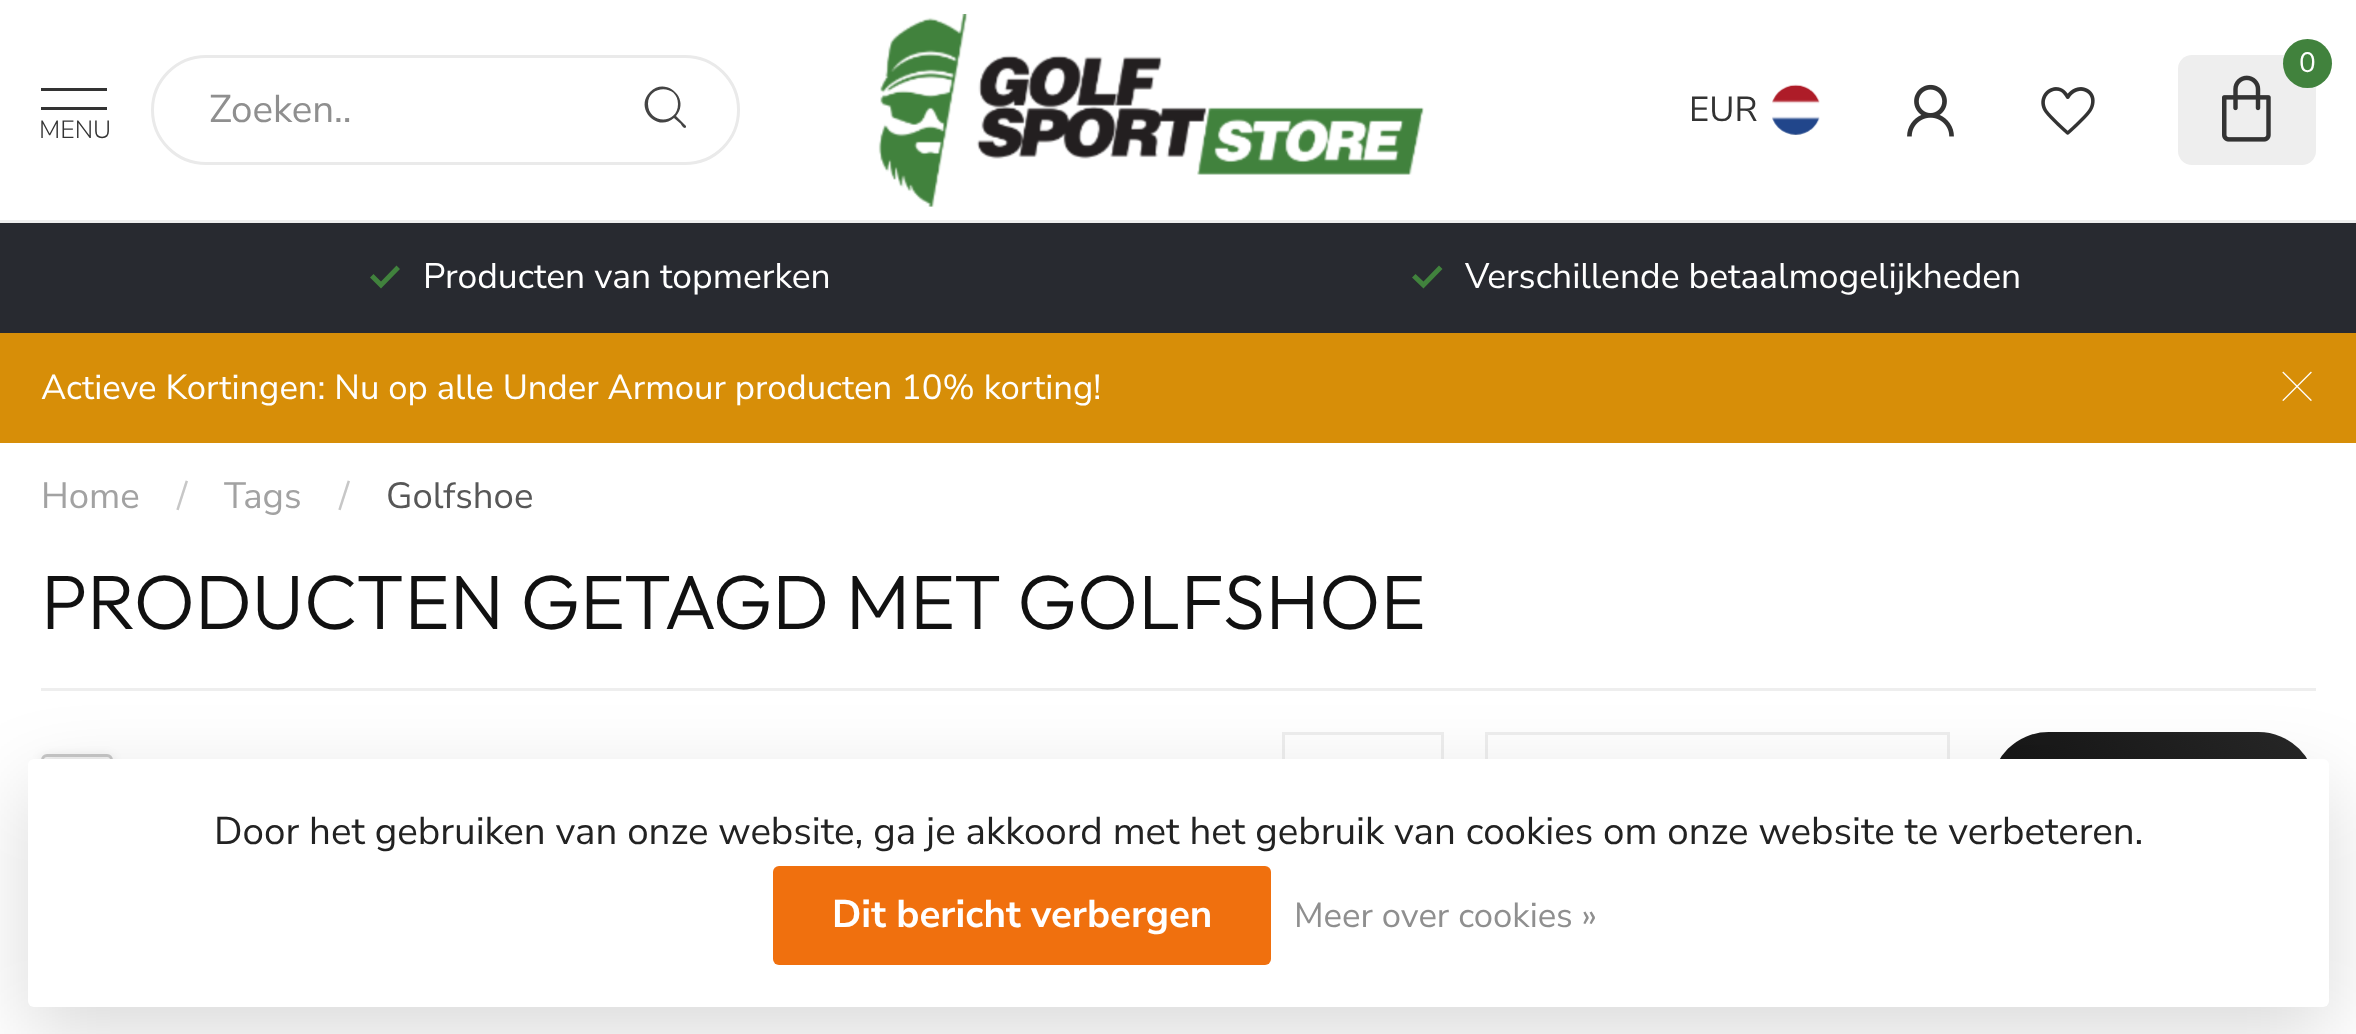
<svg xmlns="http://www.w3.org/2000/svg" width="2356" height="1034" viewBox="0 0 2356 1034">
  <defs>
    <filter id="blur1" x="-50%" y="-200%" width="200%" height="500%"><feGaussianBlur stdDeviation="5.5"/></filter>
    <linearGradient id="g1" gradientUnits="userSpaceOnUse" x1="2043" y1="899" x2="2263" y2="679"><stop offset="0" stop-color="#111111"/><stop offset="1" stop-color="#282828"/></linearGradient>
    <filter id="blur2" x="-50%" y="-200%" width="200%" height="500%"><feGaussianBlur stdDeviation="41"/></filter>
  </defs>
  <rect width="100%" height="100%" fill="#ffffff"/>
  <rect x="152.5" y="56.5" width="586" height="107" rx="53.5" fill="none" stroke="#eaeaea" stroke-width="3"/>
  <text x="209" y="122" font-family="Nunito Sans" font-size="38.5" fill="#8f8f8f">Zoeken..</text>
  <path d="M686 126L676 116C691 99 666 76 650 92C634 108 657 133 674 118L681 124C681 125 685 130 686 127ZM648 104C648 85 678 84 678 104C678 125 648 124 648 104Z" fill="#444444"/>
  <rect x="41" y="88" width="66" height="3" fill="#333333"/>
  <rect x="41" y="107" width="66" height="3" fill="#333333"/>
  <text x="39" y="138" font-family="Nunito Sans" font-size="25" font-weight="300" fill="#333333">MENU</text>
  <image x="878" y="14" width="546" height="193" href="img1.png"/>
  <rect x="2178" y="55" width="138" height="110" rx="14" fill="#eeeeee"/>
  <circle cx="2307.5" cy="63.5" r="24.5" fill="#41823d"/>
  <text x="2299" y="72" font-family="Nunito Sans" font-size="28" fill="#ffffff">0</text>
  <image x="2222" y="75" width="49" height="67" href="img2.png"/>
  <text x="1689" y="121" font-family="Nunito Sans" font-size="34.65" fill="#333333">EUR</text>
  <image x="1772" y="84" width="48" height="51" href="img3.png"/>
  <image x="1907" y="84" width="47" height="53" href="img4.png"/>
  <image x="2041" y="87" width="54" height="48" href="img5.png"/>
  <rect x="0" y="220" width="2356" height="3" fill="#eeeeee"/>
  <rect x="0" y="223" width="2356" height="110" fill="#282a30"/>
  <path d="M381 288.5L370 277.5L373.5 274L381 281.5L396.5 265.5L400 269Z" fill="#41823d"/>
  <text x="423" y="288" font-family="Nunito Sans" font-size="35.4" fill="#ffffff">Producten van topmerken</text>
  <path d="M1423.5 288.5L1412 277.5L1415.5 274L1423.5 281.5L1439 265.5L1442.5 269Z" fill="#41823d"/>
  <text x="1465" y="288" font-family="Nunito Sans" font-size="35.4" fill="#ffffff">Verschillende betaalmogelijkheden</text>
  <rect x="0" y="333" width="2356" height="110" fill="#d78e08"/>
  <text x="41" y="399" font-family="Nunito Sans" font-size="34.65" fill="#ffffff">Actieve Kortingen: Nu op alle Under Armour producten 10% korting!</text>
  <image x="2282" y="371" width="30" height="30" href="img6.png"/>
  <text x="41" y="508" font-family="Nunito Sans" font-size="36.5" fill="#a2a2a2">Home</text>
  <text x="177" y="508" font-family="Nunito Sans" font-size="36.5" fill="#c7c7c7">/</text>
  <text x="224" y="508" font-family="Nunito Sans" font-size="36.5" fill="#a2a2a2">Tags</text>
  <text x="339" y="508" font-family="Nunito Sans" font-size="36.5" fill="#c7c7c7">/</text>
  <text x="386" y="508" font-family="Nunito Sans" font-size="36.5" fill="#575757">Golfshoe</text>
  <text x="41" y="629" font-family="Outfit" font-size="77" font-weight="300" fill="#111111">PRODUCTEN GETAGD MET GOLFSHOE</text>
  <rect x="41" y="688" width="2275" height="3" fill="#eeeeee"/>
  <rect x="41" y="756" width="72" height="72" rx="6" fill="#000000" fill-opacity="0.1" filter="url(#blur1)"/>
  <rect x="42.5" y="755.5" width="69" height="68" rx="4.5" fill="none" stroke="#c6c6c6" stroke-width="3"/>
  <rect x="1283.5" y="733.5" width="159" height="112" fill="none" stroke="#eeeeee" stroke-width="3"/>
  <rect x="1486.5" y="733.5" width="462" height="112" fill="none" stroke="#eeeeee" stroke-width="3"/>
  <rect x="1991" y="732" width="325" height="115" rx="57.5" fill="url(#g1)"/>
  <rect x="28" y="787" width="2301" height="247" rx="6" fill="#000000" fill-opacity="0.15" filter="url(#blur2)"/>
  <rect x="28" y="759" width="2301" height="248" rx="6" fill="#ffffff"/>
  <text x="214" y="844" font-family="Nunito Sans" font-size="38.5" fill="#222222">Door het gebruiken van onze website, ga je akkoord met het gebruik van cookies om onze website te verbeteren.</text>
  <rect x="773" y="866" width="498" height="99" rx="6" fill="#f0700e"/>
  <text x="832" y="927" font-family="Nunito Sans" font-size="38.5" font-weight="bold" fill="#ffffff">Dit bericht verbergen</text>
  <text x="1294" y="927" font-family="Nunito Sans" font-size="34.65" fill="#8f8f8f">Meer over cookies »</text>
</svg>
